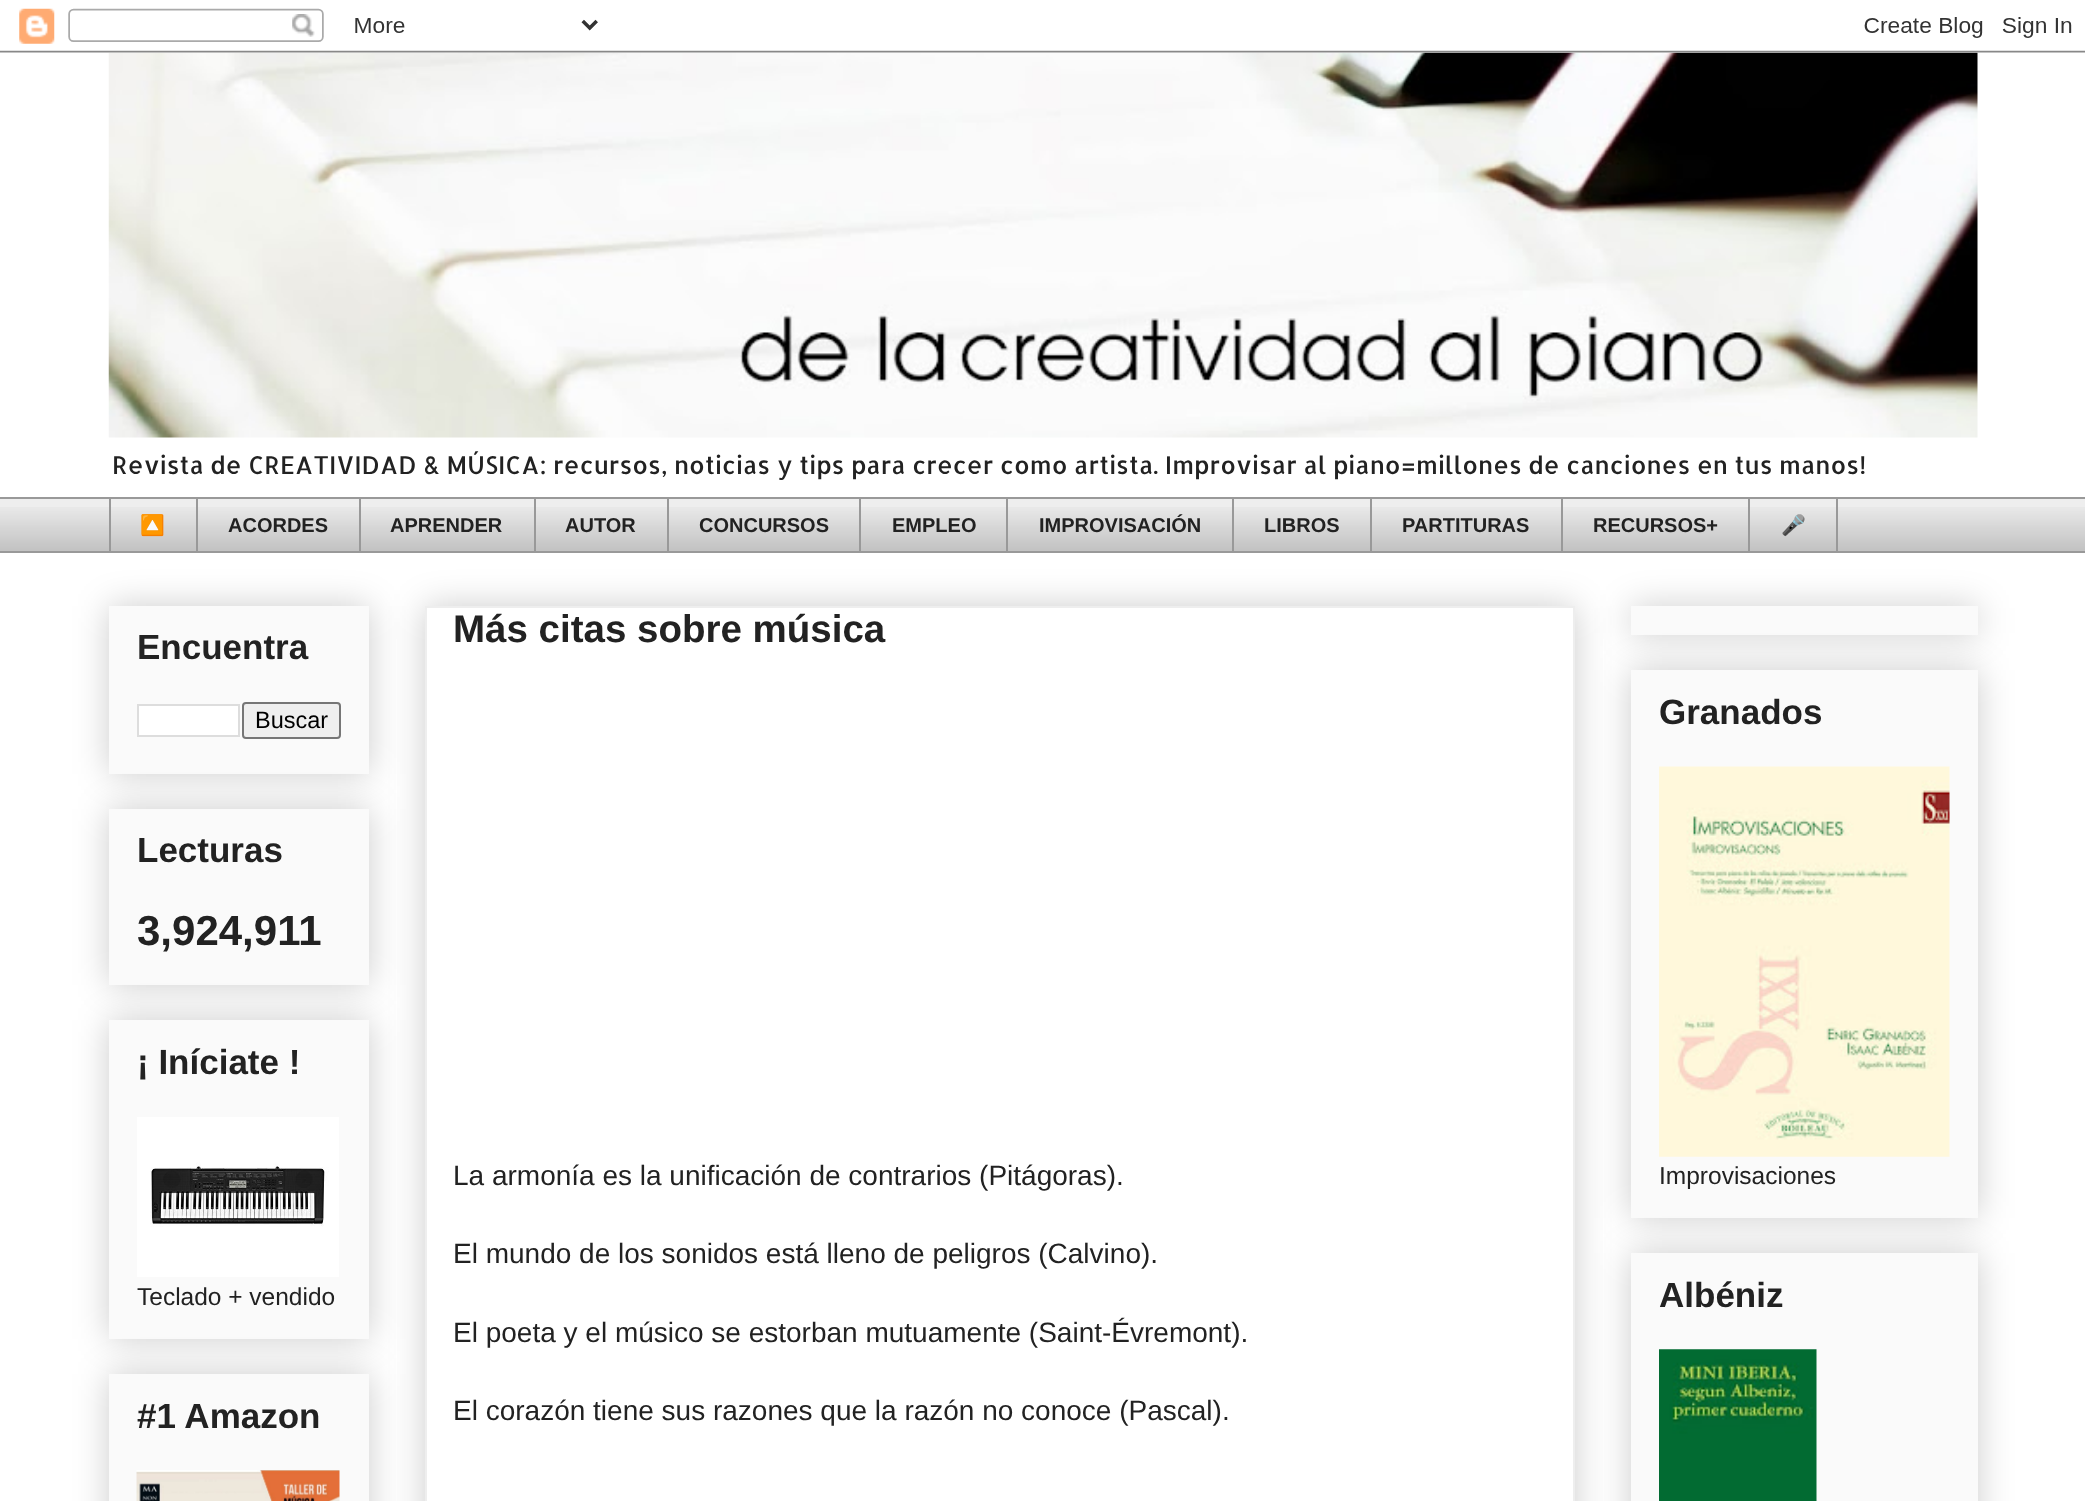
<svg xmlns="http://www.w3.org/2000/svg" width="2085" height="1501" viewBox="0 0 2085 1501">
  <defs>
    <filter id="blur1" x="-50%" y="-200%" width="200%" height="500%"><feGaussianBlur stdDeviation="17.5"/></filter>
  </defs>
  <rect width="100%" height="100%" fill="#ffffff"/>
  <image x="108" y="52" width="1870" height="386" href="img2.png"/>
  <image x="0" y="8" width="2085" height="45" href="img1.png"/>
  <text x="112" y="474" font-family="Allerta" font-size="24.5" fill="#222222">Revista de CREATIVIDAD &amp; MÚSICA: recursos, noticias y tips para crecer como artista. Improvisar al piano=millones de canciones en tus manos!</text>
  <rect x="0" y="499" width="2085" height="52" fill="#eeeeee"/>
  <image x="0" y="507" width="2085" height="44" href="img3.png"/>
  <rect x="0" y="497" width="2085" height="2" fill="#999999"/>
  <rect x="109" y="497" width="2" height="56" fill="#999999"/>
  <text x="140" y="532" font-family="Noto Color Emoji" font-size="20" font-weight="bold" fill="#222222">🔼</text>
  <rect x="196" y="497" width="2" height="56" fill="#999999"/>
  <text x="228" y="532" font-family="Liberation Sans" font-size="20" font-weight="bold" fill="#222222">ACORDES</text>
  <rect x="359" y="497" width="2" height="56" fill="#999999"/>
  <text x="390" y="532" font-family="Liberation Sans" font-size="20" font-weight="bold" fill="#222222">APRENDER</text>
  <rect x="534" y="497" width="2" height="56" fill="#999999"/>
  <text x="565" y="532" font-family="Liberation Sans" font-size="20" font-weight="bold" fill="#222222">AUTOR</text>
  <rect x="667" y="497" width="2" height="56" fill="#999999"/>
  <text x="699" y="532" font-family="Liberation Sans" font-size="20" font-weight="bold" fill="#222222">CONCURSOS</text>
  <rect x="859" y="497" width="2" height="56" fill="#999999"/>
  <text x="892" y="532" font-family="Liberation Sans" font-size="20" font-weight="bold" fill="#222222">EMPLEO</text>
  <rect x="1006" y="497" width="2" height="56" fill="#999999"/>
  <text x="1039" y="532" font-family="Liberation Sans" font-size="20" font-weight="bold" fill="#222222">IMPROVISACIÓN</text>
  <rect x="1232" y="497" width="2" height="56" fill="#999999"/>
  <text x="1264" y="532" font-family="Liberation Sans" font-size="20" font-weight="bold" fill="#222222">LIBROS</text>
  <rect x="1370" y="497" width="2" height="56" fill="#999999"/>
  <text x="1402" y="532" font-family="Liberation Sans" font-size="20" font-weight="bold" fill="#222222">PARTITURAS</text>
  <rect x="1561" y="497" width="2" height="56" fill="#999999"/>
  <text x="1593" y="532" font-family="Liberation Sans" font-size="20" font-weight="bold" fill="#222222">RECURSOS+</text>
  <rect x="1749" y="498" width="88" height="54" fill="none" stroke="#999999" stroke-width="2"/>
  <text x="1781" y="532" font-family="Noto Color Emoji" font-size="20" font-weight="bold" fill="#222222">🎤</text>
  <rect x="0" y="551" width="2085" height="2" fill="#999999"/>
  <rect x="425" y="606" width="1150" height="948" fill="#000000" fill-opacity="0.2" filter="url(#blur1)"/>
  <rect x="396" y="639" width="1" height="862" fill="#ffffff"/>
  <rect x="109" y="606" width="260" height="168" fill="#000000" fill-opacity="0.2" filter="url(#blur1)"/>
  <rect x="109" y="606" width="260" height="168" fill="#fafafa"/>
  <text x="137" y="659" font-family="Liberation Sans" font-size="35" font-weight="bold" fill="#222222">Encuentra</text>
  <rect x="138" y="705" width="101" height="31" fill="#ffffff" stroke="#dddddd" stroke-width="2"/>
  <rect x="243" y="703" width="97" height="35" rx="3" fill="#efefef" stroke="#767676" stroke-width="2"/>
  <text x="255" y="728" font-family="Liberation Sans" font-size="23.5" fill="#000000">Buscar</text>
  <rect x="109" y="809" width="260" height="176" fill="#000000" fill-opacity="0.2" filter="url(#blur1)"/>
  <rect x="109" y="809" width="260" height="176" fill="#fafafa"/>
  <text x="137" y="862" font-family="Liberation Sans" font-size="35" font-weight="bold" fill="#222222">Lecturas</text>
  <text x="137" y="945" font-family="Liberation Sans" font-size="42" font-weight="bold" fill="#222222">3,924,911</text>
  <rect x="109" y="1020" width="260" height="319" fill="#000000" fill-opacity="0.2" filter="url(#blur1)"/>
  <rect x="109" y="1020" width="260" height="319" fill="#fafafa"/>
  <text x="137" y="1074" font-family="Liberation Sans" font-size="35" font-weight="bold" fill="#222222">¡ Iníciate !</text>
  <image x="137" y="1117" width="202" height="160" href="img4.png"/>
  <text x="137" y="1305" font-family="Liberation Sans" font-size="24.5" fill="#222222">Teclado + vendido</text>
  <rect x="109" y="1374" width="260" height="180" fill="#000000" fill-opacity="0.2" filter="url(#blur1)"/>
  <rect x="109" y="1374" width="260" height="127" fill="#fafafa"/>
  <text x="137" y="1428" font-family="Liberation Sans" font-size="35" font-weight="bold" fill="#222222">#1 Amazon</text>
  <image x="136" y="1470" width="204" height="31" href="img5.png"/>
  <rect x="426" y="607" width="1148" height="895" fill="#ffffff" stroke="#eeeeee" stroke-width="2"/>
  <text x="453" y="642" font-family="Liberation Sans" font-size="38.5" font-weight="bold" fill="#222222">Más citas sobre música</text>
  <text x="453" y="1185" font-family="Liberation Sans" font-size="28" fill="#222222">La armonía es la unificación de contrarios (Pitágoras).</text>
  <text x="453" y="1263" font-family="Liberation Sans" font-size="28" fill="#222222">El mundo de los sonidos está lleno de peligros (Calvino).</text>
  <text x="453" y="1342" font-family="Liberation Sans" font-size="28" fill="#222222">El poeta y el músico se estorban mutuamente (Saint-Évremont).</text>
  <text x="453" y="1420" font-family="Liberation Sans" font-size="28" fill="#222222">El corazón tiene sus razones que la razón no conoce (Pascal).</text>
  <rect x="1603" y="639" width="1" height="862" fill="#ffffff"/>
  <rect x="1631" y="606" width="347" height="29" fill="#000000" fill-opacity="0.2" filter="url(#blur1)"/>
  <rect x="1631" y="606" width="347" height="29" fill="#fafafa"/>
  <rect x="1631" y="670" width="347" height="548" fill="#000000" fill-opacity="0.2" filter="url(#blur1)"/>
  <rect x="1631" y="670" width="347" height="548" fill="#fafafa"/>
  <text x="1659" y="724" font-family="Liberation Sans" font-size="35" font-weight="bold" fill="#222222">Granados</text>
  <image x="1659" y="766" width="291" height="391" href="img6.png"/>
  <text x="1659" y="1184" font-family="Liberation Sans" font-size="24.5" fill="#222222">Improvisaciones</text>
  <rect x="1631" y="1253" width="347" height="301" fill="#000000" fill-opacity="0.2" filter="url(#blur1)"/>
  <rect x="1631" y="1253" width="347" height="248" fill="#fafafa"/>
  <text x="1659" y="1307" font-family="Liberation Sans" font-size="35" font-weight="bold" fill="#222222">Albéniz</text>
  <image x="1659" y="1349" width="158" height="152" href="img7.png"/>
</svg>
